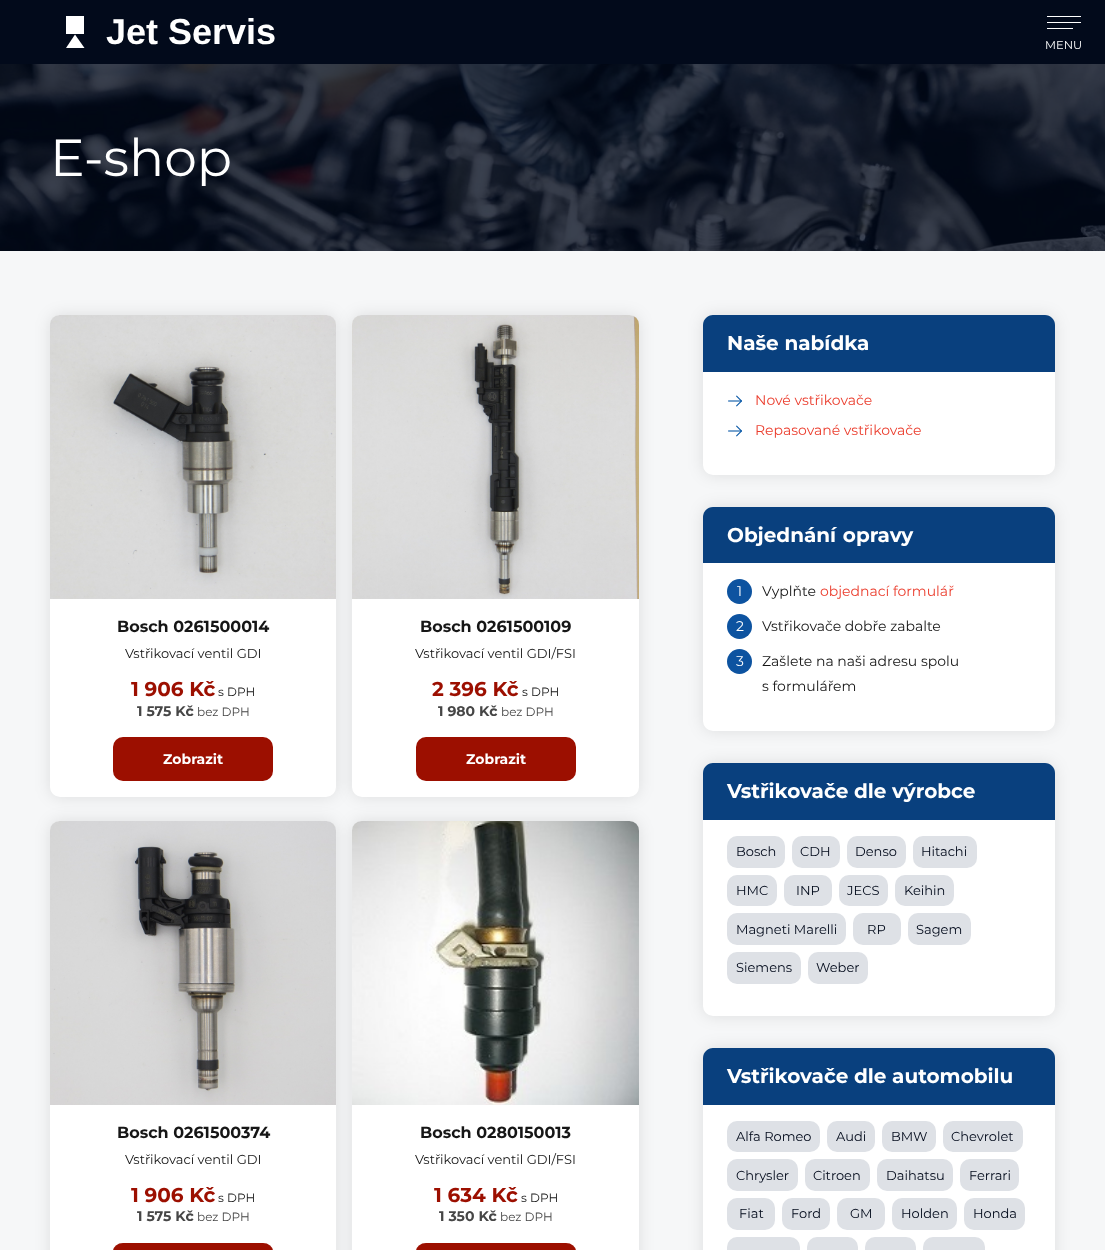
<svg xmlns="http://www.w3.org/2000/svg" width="1105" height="1250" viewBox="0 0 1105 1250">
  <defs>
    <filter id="blur1" x="-50%" y="-200%" width="200%" height="500%"><feGaussianBlur stdDeviation="8"/></filter>
  </defs>
  <rect width="100%" height="100%" fill="#f6f7f8"/>
  <rect x="0" y="0" width="1105" height="251" fill="#020a1b"/>
  <rect x="66" y="16" width="18" height="18" fill="#ffffff"/>
  <path d="M75 34.5L84.5 48H66Z" fill="#ffffff" fill-rule="evenodd"/>
  <text x="106" y="44" font-family="Liberation Sans" font-size="36" font-weight="bold" fill="#ffffff">Jet Servis</text>
  <rect x="1047" y="22" width="34" height="1" fill="#ffffff"/>
  <rect x="1047" y="16" width="34" height="1" fill="#ffffff"/>
  <rect x="1047" y="28" width="26" height="1" fill="#ffffff"/>
  <text x="1045" y="49" font-family="Montserrat" font-size="11.5" fill="#ffffff">MENU</text>
  <image x="0" y="64" width="1105" height="187" href="img1.png"/>
  <text x="50" y="176" font-family="Montserrat" font-size="52" fill="#ffffff">E-shop</text>
  <rect x="50" y="315" width="286" height="482" rx="10" fill="#000000" fill-opacity="0.1" filter="url(#blur1)"/>
  <rect x="50" y="315" width="286" height="482" rx="10" fill="#ffffff"/>
  <rect x="352" y="315" width="287" height="482" rx="10" fill="#000000" fill-opacity="0.1" filter="url(#blur1)"/>
  <image x="50" y="315" width="286" height="284" href="img2.png"/>
  <text x="117" y="632" font-family="Montserrat" font-size="16" font-weight="bold" fill="#161616">Bosch 0261500014</text>
  <text x="125" y="658" font-family="Montserrat" font-size="13" fill="#161616">Vstřikovací ventil GDI</text>
  <text x="131" y="696" font-family="Montserrat" font-size="20" font-weight="bold" fill="#9c0f00">1 906 Kč</text>
  <text x="218" y="696" font-family="Montserrat" font-size="12" fill="#161616">s DPH</text>
  <text x="137" y="716" font-family="Montserrat" font-size="14" font-weight="bold" fill="#464646">1 575 Kč</text>
  <text x="197" y="716" font-family="Montserrat" font-size="12" fill="#464646">bez DPH</text>
  <rect x="113" y="737" width="160" height="44" rx="10" fill="#9c0f00"/>
  <text x="163" y="764" font-family="Montserrat" font-size="14" font-weight="bold" fill="#ffffff">Zobrazit</text>
  <rect x="352" y="315" width="287" height="482" rx="10" fill="#ffffff"/>
  <image x="352" y="315" width="287" height="284" href="img3.png"/>
  <text x="420" y="632" font-family="Montserrat" font-size="16" font-weight="bold" fill="#161616">Bosch 0261500109</text>
  <text x="415" y="658" font-family="Montserrat" font-size="13" fill="#161616">Vstřikovací ventil GDI/FSI</text>
  <text x="432" y="696" font-family="Montserrat" font-size="20" font-weight="bold" fill="#9c0f00">2 396 Kč</text>
  <text x="522" y="696" font-family="Montserrat" font-size="12" fill="#161616">s DPH</text>
  <text x="438" y="716" font-family="Montserrat" font-size="14" font-weight="bold" fill="#464646">1 980 Kč</text>
  <text x="501" y="716" font-family="Montserrat" font-size="12" fill="#464646">bez DPH</text>
  <rect x="416" y="737" width="160" height="44" rx="10" fill="#9c0f00"/>
  <text x="466" y="764" font-family="Montserrat" font-size="14" font-weight="bold" fill="#ffffff">Zobrazit</text>
  <rect x="50" y="821" width="286" height="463" rx="10" fill="#000000" fill-opacity="0.1" filter="url(#blur1)"/>
  <rect x="50" y="821" width="286" height="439" rx="10" fill="#ffffff"/>
  <rect x="352" y="821" width="287" height="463" rx="10" fill="#000000" fill-opacity="0.1" filter="url(#blur1)"/>
  <image x="50" y="821" width="286" height="284" href="img4.png"/>
  <text x="117" y="1138" font-family="Montserrat" font-size="16" font-weight="bold" fill="#161616">Bosch 0261500374</text>
  <text x="125" y="1164" font-family="Montserrat" font-size="13" fill="#161616">Vstřikovací ventil GDI</text>
  <text x="131" y="1202" font-family="Montserrat" font-size="20" font-weight="bold" fill="#9c0f00">1 906 Kč</text>
  <text x="218" y="1202" font-family="Montserrat" font-size="12" fill="#161616">s DPH</text>
  <text x="137" y="1221" font-family="Montserrat" font-size="14" font-weight="bold" fill="#464646">1 575 Kč</text>
  <text x="197" y="1221" font-family="Montserrat" font-size="12" fill="#464646">bez DPH</text>
  <rect x="113" y="1243" width="160" height="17" rx="10" fill="#9c0f00"/>
  <rect x="352" y="821" width="287" height="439" rx="10" fill="#ffffff"/>
  <image x="352" y="821" width="287" height="284" href="img5.png"/>
  <text x="420" y="1138" font-family="Montserrat" font-size="16" font-weight="bold" fill="#161616">Bosch 0280150013</text>
  <text x="415" y="1164" font-family="Montserrat" font-size="13" fill="#161616">Vstřikovací ventil GDI/FSI</text>
  <text x="434" y="1202" font-family="Montserrat" font-size="20" font-weight="bold" fill="#9c0f00">1 634 Kč</text>
  <text x="521" y="1202" font-family="Montserrat" font-size="12" fill="#161616">s DPH</text>
  <text x="439" y="1221" font-family="Montserrat" font-size="14" font-weight="bold" fill="#464646">1 350 Kč</text>
  <text x="500" y="1221" font-family="Montserrat" font-size="12" fill="#464646">bez DPH</text>
  <rect x="416" y="1243" width="160" height="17" rx="10" fill="#9c0f00"/>
  <rect x="703" y="315" width="352" height="160" rx="10" fill="#000000" fill-opacity="0.1" filter="url(#blur1)"/>
  <rect x="703" y="315" width="352" height="160" rx="10" fill="#ffffff"/>
  <path d="M713 315H1045C1050.5 315 1055 319.5 1055 325V372H703V325C703 319.5 707.5 315 713 315Z" fill="#09407e"/>
  <text x="727" y="350" font-family="Montserrat" font-size="20" font-weight="bold" fill="#ffffff">Naše nabídka</text>
  <image x="728" y="395" width="14" height="12" href="img6.png"/>
  <text x="755" y="405" font-family="Montserrat" font-size="14" fill="#eb3d2d">Nové vstřikovače</text>
  <image x="728" y="425" width="14" height="12" href="img6.png"/>
  <text x="755" y="435" font-family="Montserrat" font-size="14" fill="#eb3d2d">Repasované vstřikovače</text>
  <rect x="703" y="507" width="352" height="224" rx="10" fill="#000000" fill-opacity="0.1" filter="url(#blur1)"/>
  <rect x="703" y="507" width="352" height="224" rx="10" fill="#ffffff"/>
  <path d="M713 507H1045C1050.5 507 1055 511.5 1055 517V563H703V517C703 511.5 707.5 507 713 507Z" fill="#09407e"/>
  <text x="727" y="542" word-spacing="1" font-family="Montserrat" font-size="20" font-weight="bold" fill="#ffffff">Objednání opravy</text>
  <circle cx="739.5" cy="591.5" r="12.5" fill="#0d53a0"/>
  <text x="737" y="596" font-family="Montserrat" font-size="14" fill="#ffffff">1</text>
  <text x="762" y="596" font-family="Montserrat" font-size="14" fill="#161616">Vyplňte</text>
  <text x="820" y="596" font-family="Montserrat" font-size="14" fill="#eb3d2d">objednací formulář</text>
  <circle cx="739.5" cy="626.5" r="12.5" fill="#0d53a0"/>
  <text x="736" y="631" font-family="Montserrat" font-size="14" fill="#ffffff">2</text>
  <text x="762" y="631" font-family="Montserrat" font-size="14" fill="#161616">Vstřikovače dobře zabalte</text>
  <circle cx="739.5" cy="661.5" r="12.5" fill="#0d53a0"/>
  <text x="736" y="666" font-family="Montserrat" font-size="14" fill="#ffffff">3</text>
  <text x="762" y="666" font-family="Montserrat" font-size="14" fill="#161616">Zašlete na naši adresu spolu</text>
  <text x="762" y="691" font-family="Montserrat" font-size="14" fill="#161616">s formulářem</text>
  <rect x="703" y="763" width="352" height="253" rx="10" fill="#000000" fill-opacity="0.1" filter="url(#blur1)"/>
  <rect x="703" y="763" width="352" height="253" rx="10" fill="#ffffff"/>
  <path d="M713 763H1045C1050.5 763 1055 767.5 1055 773V820H703V773C703 767.5 707.5 763 713 763Z" fill="#09407e"/>
  <text x="727" y="798" font-family="Montserrat" font-size="20" font-weight="bold" fill="#ffffff">Vstřikovače dle výrobce</text>
  <rect x="727" y="836" width="58" height="32" rx="10" fill="#dee1e6"/>
  <text x="736" y="856" font-family="Montserrat" font-size="13" fill="#020a1b">Bosch</text>
  <rect x="792" y="836" width="48" height="32" rx="10" fill="#dee1e6"/>
  <text x="800" y="856" font-family="Montserrat" font-size="13" fill="#020a1b">CDH</text>
  <rect x="847" y="836" width="59" height="32" rx="10" fill="#dee1e6"/>
  <text x="855" y="856" font-family="Montserrat" font-size="13" fill="#020a1b">Denso</text>
  <rect x="913" y="836" width="64" height="32" rx="10" fill="#dee1e6"/>
  <text x="921" y="856" font-family="Montserrat" font-size="13" fill="#020a1b">Hitachi</text>
  <rect x="727" y="875" width="50" height="31" rx="10" fill="#dee1e6"/>
  <text x="736" y="895" font-family="Montserrat" font-size="13" fill="#020a1b">HMC</text>
  <rect x="784" y="875" width="48" height="31" rx="10" fill="#dee1e6"/>
  <text x="796" y="895" font-family="Montserrat" font-size="13" fill="#020a1b">INP</text>
  <rect x="839" y="875" width="49" height="31" rx="10" fill="#dee1e6"/>
  <text x="847" y="895" font-family="Montserrat" font-size="13" fill="#020a1b">JECS</text>
  <rect x="895" y="875" width="59" height="31" rx="10" fill="#dee1e6"/>
  <text x="904" y="895" font-family="Montserrat" font-size="13" fill="#020a1b">Keihin</text>
  <rect x="727" y="913" width="119" height="32" rx="10" fill="#dee1e6"/>
  <text x="736" y="934" font-family="Montserrat" font-size="13" fill="#020a1b">Magneti Marelli</text>
  <rect x="853" y="913" width="48" height="32" rx="10" fill="#dee1e6"/>
  <text x="867" y="934" font-family="Montserrat" font-size="13" fill="#020a1b">RP</text>
  <rect x="908" y="913" width="63" height="32" rx="10" fill="#dee1e6"/>
  <text x="916" y="934" font-family="Montserrat" font-size="13" fill="#020a1b">Sagem</text>
  <rect x="727" y="952" width="74" height="32" rx="10" fill="#dee1e6"/>
  <text x="736" y="972" font-family="Montserrat" font-size="13" fill="#020a1b">Siemens</text>
  <rect x="808" y="952" width="60" height="32" rx="10" fill="#dee1e6"/>
  <text x="816" y="972" font-family="Montserrat" font-size="13" fill="#020a1b">Weber</text>
  <rect x="703" y="1048" width="352" height="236" rx="10" fill="#000000" fill-opacity="0.1" filter="url(#blur1)"/>
  <rect x="703" y="1048" width="352" height="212" rx="10" fill="#ffffff"/>
  <path d="M713 1048H1045C1050.5 1048 1055 1052.5 1055 1058V1105H703V1058C703 1052.5 707.5 1048 713 1048Z" fill="#09407e"/>
  <text x="727" y="1083" font-family="Montserrat" font-size="20" font-weight="bold" fill="#ffffff">Vstřikovače dle automobilu</text>
  <rect x="727" y="1121" width="93" height="31" rx="10" fill="#dee1e6"/>
  <text x="736" y="1141" font-family="Montserrat" font-size="13" fill="#020a1b">Alfa Romeo</text>
  <rect x="827" y="1121" width="48" height="31" rx="10" fill="#dee1e6"/>
  <text x="836" y="1141" font-family="Montserrat" font-size="13" fill="#020a1b">Audi</text>
  <rect x="882" y="1121" width="54" height="31" rx="10" fill="#dee1e6"/>
  <text x="891" y="1141" font-family="Montserrat" font-size="13" fill="#020a1b">BMW</text>
  <rect x="943" y="1121" width="80" height="31" rx="10" fill="#dee1e6"/>
  <text x="951" y="1141" font-family="Montserrat" font-size="13" fill="#020a1b">Chevrolet</text>
  <rect x="727" y="1159" width="71" height="32" rx="10" fill="#dee1e6"/>
  <text x="736" y="1180" font-family="Montserrat" font-size="13" fill="#020a1b">Chrysler</text>
  <rect x="805" y="1159" width="65" height="32" rx="10" fill="#dee1e6"/>
  <text x="813" y="1180" font-family="Montserrat" font-size="13" fill="#020a1b">Citroen</text>
  <rect x="877" y="1159" width="76" height="32" rx="10" fill="#dee1e6"/>
  <text x="886" y="1180" font-family="Montserrat" font-size="13" fill="#020a1b">Daihatsu</text>
  <rect x="960" y="1159" width="59" height="32" rx="10" fill="#dee1e6"/>
  <text x="969" y="1180" font-family="Montserrat" font-size="13" fill="#020a1b">Ferrari</text>
  <rect x="727" y="1198" width="48" height="32" rx="10" fill="#dee1e6"/>
  <text x="739" y="1218" font-family="Montserrat" font-size="13" fill="#020a1b">Fiat</text>
  <rect x="782" y="1198" width="48" height="32" rx="10" fill="#dee1e6"/>
  <text x="791" y="1218" font-family="Montserrat" font-size="13" fill="#020a1b">Ford</text>
  <rect x="837" y="1198" width="48" height="32" rx="10" fill="#dee1e6"/>
  <text x="850" y="1218" font-family="Montserrat" font-size="13" fill="#020a1b">GM</text>
  <rect x="892" y="1198" width="65" height="32" rx="10" fill="#dee1e6"/>
  <text x="901" y="1218" font-family="Montserrat" font-size="13" fill="#020a1b">Holden</text>
  <rect x="964" y="1198" width="61" height="32" rx="10" fill="#dee1e6"/>
  <text x="973" y="1218" font-family="Montserrat" font-size="13" fill="#020a1b">Honda</text>
  <rect x="727" y="1237" width="73" height="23" rx="10" fill="#dee1e6"/>
  <rect x="807" y="1237" width="51" height="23" rx="10" fill="#dee1e6"/>
  <rect x="865" y="1237" width="51" height="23" rx="10" fill="#dee1e6"/>
  <rect x="923" y="1237" width="62" height="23" rx="10" fill="#dee1e6"/>
</svg>
